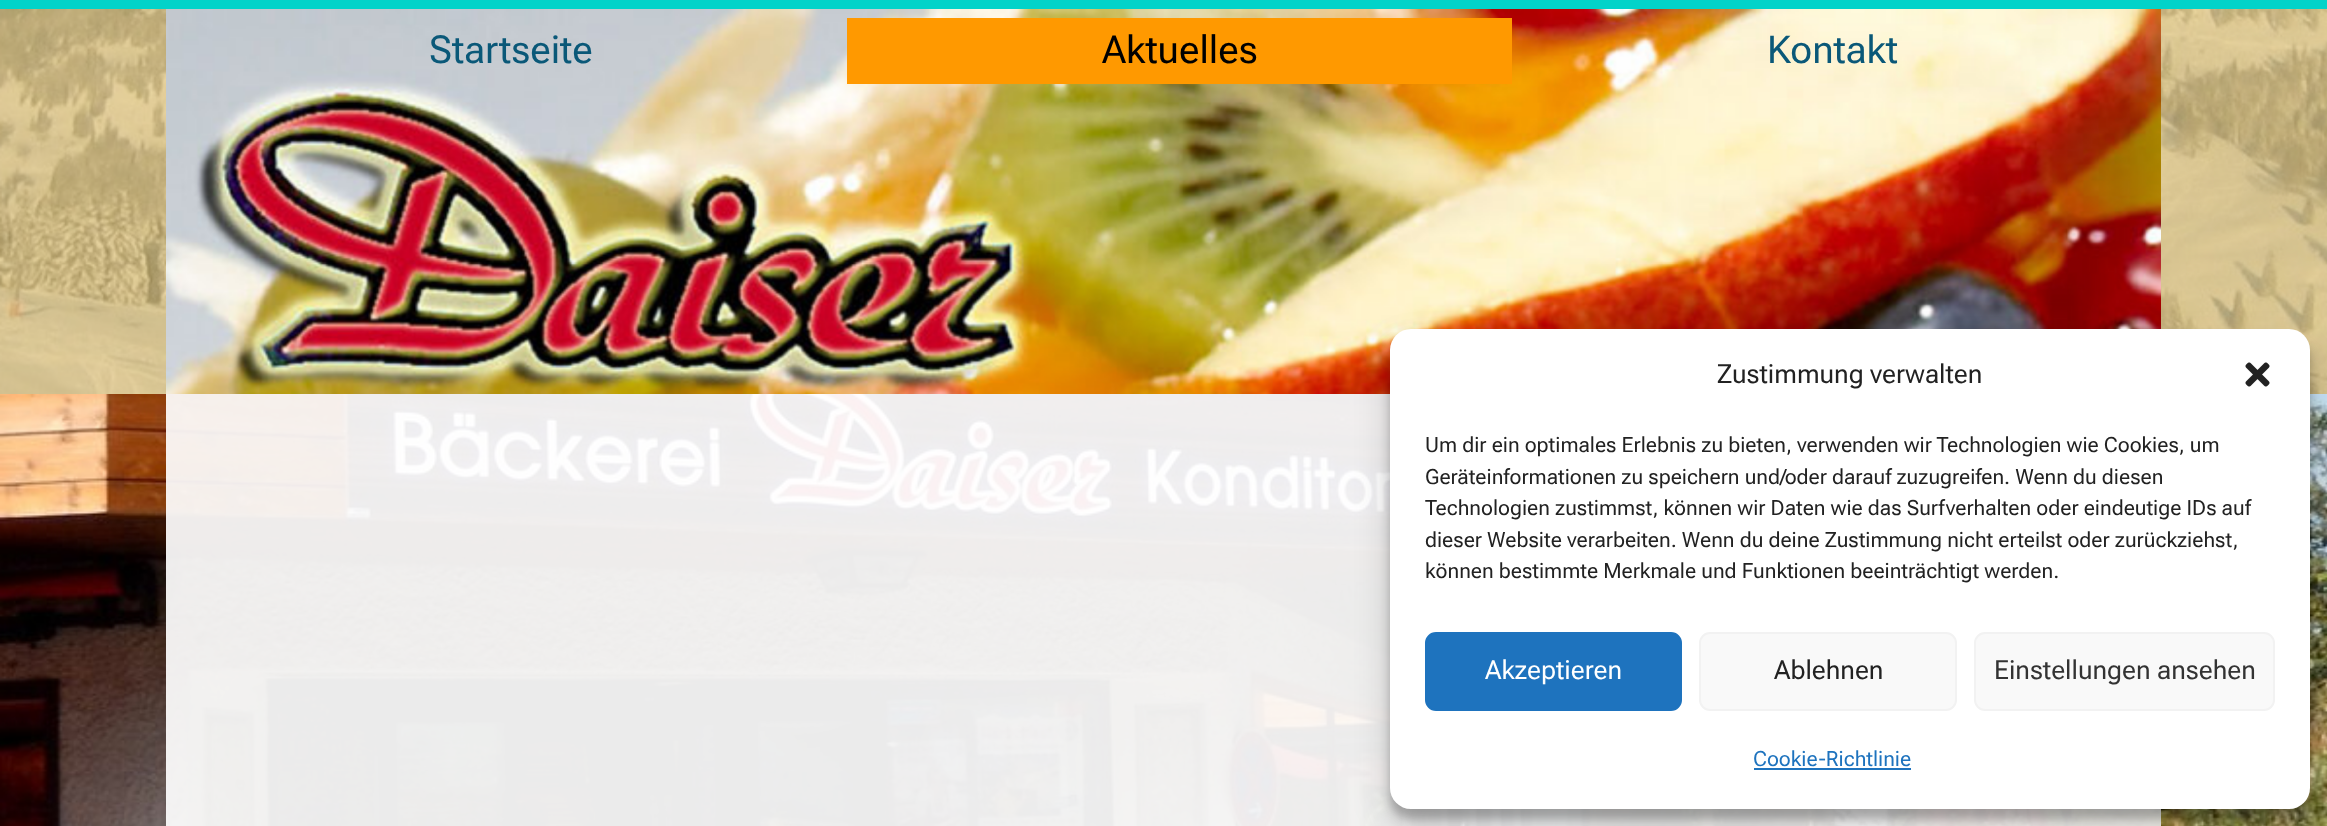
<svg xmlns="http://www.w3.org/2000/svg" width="2327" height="826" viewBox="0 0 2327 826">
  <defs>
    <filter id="blur1" x="-50%" y="-200%" width="200%" height="500%"><feGaussianBlur stdDeviation="5"/></filter>
    <filter id="blur2" x="-50%" y="-200%" width="200%" height="500%"><feGaussianBlur stdDeviation="17.5"/></filter>
  </defs>
  <rect width="100%" height="100%" fill="#ffffff"/>
  <rect x="0" y="9" width="2327" height="385" fill="#e4c679"/>
  <rect x="0" y="0" width="2327" height="9" fill="#02d3c9"/>
  <image x="0" y="9" width="2327" height="385" href="img1.png"/>
  <image x="166" y="9" width="1995" height="385" href="img2.png"/>
  <text x="429" y="63" font-family="Roboto Flex" font-size="38.5" fill="#0a5878">Startseite</text>
  <rect x="847" y="18" width="665" height="66" fill="#ff9900"/>
  <text x="1102" y="63" font-family="Roboto Flex" font-size="38.5" fill="#000000">Aktuelles</text>
  <text x="1767" y="63" font-family="Roboto Flex" font-size="38.5" fill="#0a5878">Kontakt</text>
  <image x="0" y="394" width="2327" height="432" href="img4.png"/>
  <rect x="166" y="394" width="1995" height="432" fill="#ffffff" fill-opacity="0.92"/>
  <rect x="1390" y="340" width="920" height="479" rx="21" fill="#000000" fill-opacity="0.23" filter="url(#blur1)"/>
  <rect x="1390" y="347" width="920" height="479" rx="21" fill="#000000" fill-opacity="0.19" filter="url(#blur2)"/>
  <rect x="1390" y="329" width="920" height="480" rx="21" fill="#ffffff"/>
  <text x="1717" y="383" font-family="Roboto Flex" font-size="26.25" fill="#222222">Zustimmung verwalten</text>
  <image x="2245" y="362" width="25" height="25" href="img3.png"/>
  <text x="1425" y="452" font-family="Roboto Flex" font-size="21" fill="#222222">Um dir ein optimales Erlebnis zu bieten, verwenden wir Technologien wie Cookies, um</text>
  <text x="1425" y="484" font-family="Roboto Flex" font-size="21" fill="#222222">Geräteinformationen zu speichern und/oder darauf zuzugreifen. Wenn du diesen</text>
  <text x="1425" y="515" font-family="Roboto Flex" font-size="21" fill="#222222">Technologien zustimmst, können wir Daten wie das Surfverhalten oder eindeutige IDs auf</text>
  <text x="1425" y="547" font-family="Roboto Flex" font-size="21" fill="#222222">dieser Website verarbeiten. Wenn du deine Zustimmung nicht erteilst oder zurückziehst,</text>
  <text x="1425" y="578" font-family="Roboto Flex" font-size="21" fill="#222222">können bestimmte Merkmale und Funktionen beeinträchtigt werden.</text>
  <rect x="1426" y="633" width="255" height="77" rx="10" fill="#1e73be" stroke="#1e73be" stroke-width="2"/>
  <text x="1485" y="679" font-family="Roboto Flex" font-size="26.25" fill="#ffffff">Akzeptieren</text>
  <rect x="1700" y="633" width="256" height="77" rx="10" fill="#f9f9f9" stroke="#f2f2f2" stroke-width="2"/>
  <text x="1774" y="679" font-family="Roboto Flex" font-size="26.25" fill="#222222">Ablehnen</text>
  <rect x="1975" y="633" width="299" height="77" rx="10" fill="#f9f9f9" stroke="#f2f2f2" stroke-width="2"/>
  <text x="1994" y="679" font-family="Roboto Flex" font-size="26.25" fill="#333333">Einstellungen ansehen</text>
  <text x="1753" y="766" font-family="Roboto Flex" font-size="21" fill="#1e73be">Cookie-Richtlinie</text>
  <rect x="1754" y="768" width="157" height="2" fill="#1e73be"/>
</svg>
